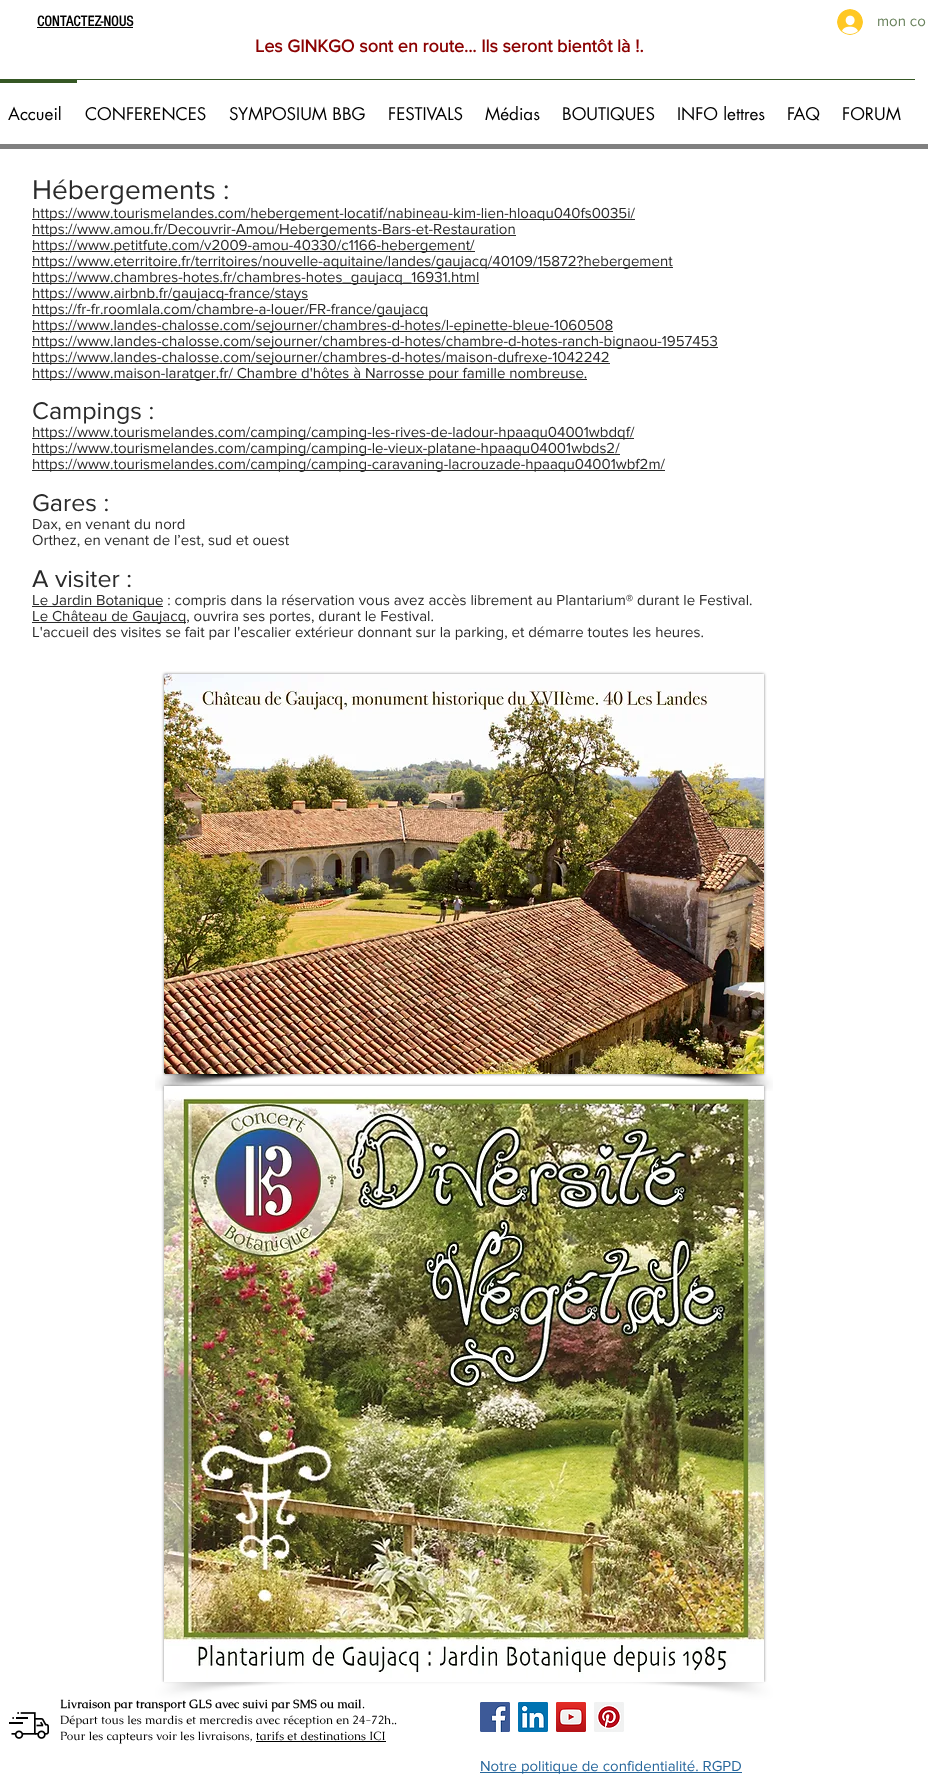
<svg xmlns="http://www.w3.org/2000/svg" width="928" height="1778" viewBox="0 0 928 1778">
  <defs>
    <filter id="blur1" x="-50%" y="-200%" width="200%" height="500%"><feGaussianBlur stdDeviation="1.5"/></filter>
  </defs>
  <rect width="100%" height="100%" fill="#ffffff"/>
  <text x="37" y="26" font-family="'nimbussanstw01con'" font-size="15" font-weight="bold" fill="#000000">CONTACTEZ-NOUS</text>
  <rect x="37" y="27" width="96" height="1" fill="#000000"/>
  <image x="837" y="9" width="26" height="26" href="img1.png"/>
  <text x="877" y="26" font-family="'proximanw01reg'" font-size="15" fill="#68815b">mon co</text>
  <text x="255" y="52" font-family="'proximanw01reg'" font-size="18" font-weight="bold" fill="#8b0000">Les GINKGO sont en route... Ils seront bientôt là !.</text>
  <rect x="0" y="79" width="77" height="4" fill="#355724"/>
  <text x="8" y="120" font-family="futura" font-size="17" fill="#000000">Accueil</text>
  <rect x="77" y="79" width="838" height="1" fill="#355724"/>
  <text x="85" y="120" font-family="futura" font-size="17" fill="#000000">CONFERENCES</text>
  <text x="229" y="120" font-family="futura" font-size="17" fill="#000000">SYMPOSIUM BBG</text>
  <text x="388" y="120" font-family="futura" font-size="17" fill="#000000">FESTIVALS</text>
  <text x="485" y="120" font-family="futura" font-size="17" fill="#000000">Médias</text>
  <text x="562" y="120" font-family="futura" font-size="17" fill="#000000">BOUTIQUES</text>
  <text x="677" y="120" font-family="futura" font-size="17" fill="#000000">INFO lettres</text>
  <text x="787" y="120" font-family="futura" font-size="17" fill="#000000">FAQ</text>
  <text x="842" y="120" font-family="futura" font-size="17" fill="#000000">FORUM</text>
  <rect x="0" y="144" width="928" height="5" fill="#808080"/>
  <text x="32" y="199" font-family="'proximanw01reg'" font-size="28" fill="#2a2a2a">Hébergements :</text>
  <rect x="32" y="219" width="603" height="1" fill="#2a2a2a"/>
  <text x="32" y="218" font-family="'proximanw01reg'" font-size="15" fill="#2a2a2a">https://www.tourismelandes.com/hebergement-locatif/nabineau-kim-lien-hloaqu040fs0035i/</text>
  <rect x="32" y="235" width="484" height="1" fill="#2a2a2a"/>
  <text x="32" y="234" font-family="'proximanw01reg'" font-size="15" fill="#2a2a2a">https://www.amou.fr/Decouvrir-Amou/Hebergements-Bars-et-Restauration</text>
  <rect x="32" y="251" width="443" height="1" fill="#2a2a2a"/>
  <text x="32" y="250" font-family="'proximanw01reg'" font-size="15" fill="#2a2a2a">https://www.petitfute.com/v2009-amou-40330/c1166-hebergement/</text>
  <rect x="32" y="267" width="641" height="1" fill="#2a2a2a"/>
  <text x="32" y="266" font-family="'proximanw01reg'" font-size="15" fill="#2a2a2a">https://www.eterritoire.fr/territoires/nouvelle-aquitaine/landes/gaujacq/40109/15872?hebergement</text>
  <rect x="32" y="283" width="447" height="1" fill="#2a2a2a"/>
  <text x="32" y="282" font-family="'proximanw01reg'" font-size="15" fill="#2a2a2a">https://www.chambres-hotes.fr/chambres-hotes_gaujacq_16931.html</text>
  <rect x="32" y="299" width="276" height="1" fill="#2a2a2a"/>
  <text x="32" y="298" font-family="'proximanw01reg'" font-size="15" fill="#2a2a2a">https://www.airbnb.fr/gaujacq-france/stays</text>
  <rect x="32" y="315" width="396" height="1" fill="#2a2a2a"/>
  <text x="32" y="314" font-family="'proximanw01reg'" font-size="15" fill="#2a2a2a">https://fr-fr.roomlala.com/chambre-a-louer/FR-france/gaujacq</text>
  <rect x="32" y="331" width="581" height="1" fill="#2a2a2a"/>
  <text x="32" y="330" font-family="'proximanw01reg'" font-size="15" fill="#2a2a2a">https://www.landes-chalosse.com/sejourner/chambres-d-hotes/l-epinette-bleue-1060508</text>
  <rect x="32" y="347" width="686" height="1" fill="#2a2a2a"/>
  <text x="32" y="346" font-family="'proximanw01reg'" font-size="15" fill="#2a2a2a">https://www.landes-chalosse.com/sejourner/chambres-d-hotes/chambre-d-hotes-ranch-bignaou-1957453</text>
  <rect x="32" y="363" width="578" height="1" fill="#2a2a2a"/>
  <text x="32" y="362" font-family="'proximanw01reg'" font-size="15" fill="#2a2a2a">https://www.landes-chalosse.com/sejourner/chambres-d-hotes/maison-dufrexe-1042242</text>
  <rect x="32" y="379" width="555" height="1" fill="#2a2a2a"/>
  <text x="32" y="378" font-family="'proximanw01reg'" font-size="15" fill="#2a2a2a">https://www.maison-laratger.fr/ Chambre d'hôtes à Narrosse pour famille nombreuse.</text>
  <text x="32" y="419" font-family="'proximanw01reg'" font-size="25" fill="#2a2a2a">Campings :</text>
  <rect x="32" y="438" width="602" height="1" fill="#2a2a2a"/>
  <text x="32" y="437" font-family="'proximanw01reg'" font-size="15" fill="#2a2a2a">https://www.tourismelandes.com/camping/camping-les-rives-de-ladour-hpaaqu04001wbdqf/</text>
  <rect x="32" y="454" width="588" height="1" fill="#2a2a2a"/>
  <text x="32" y="453" font-family="'proximanw01reg'" font-size="15" fill="#2a2a2a">https://www.tourismelandes.com/camping/camping-le-vieux-platane-hpaaqu04001wbds2/</text>
  <rect x="32" y="470" width="633" height="1" fill="#2a2a2a"/>
  <text x="32" y="469" font-family="'proximanw01reg'" font-size="15" fill="#2a2a2a">https://www.tourismelandes.com/camping/camping-caravaning-lacrouzade-hpaaqu04001wbf2m/</text>
  <text x="32" y="511" font-family="'proximanw01reg'" font-size="25" fill="#2a2a2a">Gares :</text>
  <text x="32" y="529" font-family="'proximanw01reg'" font-size="15" fill="#2a2a2a">Dax, en venant du nord</text>
  <text x="32" y="545" font-family="'proximanw01reg'" font-size="15" fill="#2a2a2a">Orthez, en venant de l’est, sud et ouest</text>
  <text x="32" y="587" font-family="'proximanw01reg'" font-size="25" fill="#2a2a2a">A visiter :</text>
  <rect x="32" y="606" width="131" height="1" fill="#2a2a2a"/>
  <text x="32" y="605" font-family="'proximanw01reg'" font-size="15" fill="#2a2a2a">Le Jardin Botanique : compris dans la réservation vous avez accès librement au Plantarium® durant le Festival.</text>
  <rect x="32" y="622" width="154" height="1" fill="#2a2a2a"/>
  <text x="32" y="621" font-family="'proximanw01reg'" font-size="15" fill="#2a2a2a">Le Château de Gaujacq, ouvrira ses portes, durant le Festival.</text>
  <text x="32" y="637" font-family="'proximanw01reg'" font-size="15" fill="#2a2a2a">L'accueil des visites se fait par l'escalier extérieur donnant sur la parking, et démarre toutes les heures.</text>
  <rect x="164" y="674" width="600" height="400" fill="#000000" fill-opacity="0.5" filter="url(#blur1)"/>
  <image x="164" y="674" width="600" height="400" href="img2.png"/>
  <image x="155" y="1074" width="154" height="17" href="img3.png"/>
  <image x="619" y="1074" width="154" height="17" href="img4.png"/>
  <rect x="164" y="1086" width="600" height="596" fill="#000000" fill-opacity="0.5" filter="url(#blur1)"/>
  <image x="164" y="1086" width="600" height="596" href="img5.png"/>
  <image x="155" y="1682" width="154" height="18" href="img6.png"/>
  <image x="619" y="1682" width="154" height="18" href="img7.png"/>
  <rect x="155" y="1682" width="618" height="18" fill="#ffffff" fill-opacity="0.8"/>
  <image x="9" y="1712" width="40" height="27" href="img8.png"/>
  <text x="60" y="1708" font-family="Caudex" font-size="12" font-weight="bold" fill="#000000">Livraison par transport GLS avec suivi par SMS ou mail</text>
  <text x="362" y="1708" font-family="Caudex" font-size="12" fill="#000000">.</text>
  <text x="60" y="1724" font-family="Caudex" font-size="12" fill="#000000">Départ tous les mardis et mercredis avec réception en 24-72h..</text>
  <text x="60" y="1740" font-family="Caudex" font-size="12" fill="#000000">Pour les capteurs voir les livraisons, tarifs et destinations ICI</text>
  <rect x="256" y="1741" width="130" height="1" fill="#000000"/>
  <image x="480" y="1702" width="30" height="30" href="img9.png"/>
  <image x="518" y="1702" width="30" height="30" href="img10.png"/>
  <image x="556" y="1702" width="30" height="30" href="img11.png"/>
  <image x="594" y="1702" width="30" height="30" href="img12.png"/>
  <rect x="480" y="1772" width="262" height="1" fill="#27679c"/>
  <text x="480" y="1771" font-family="'proximanw01reg'" font-size="15" fill="#27679c">Notre politique de confidentialité. RGPD</text>
</svg>
